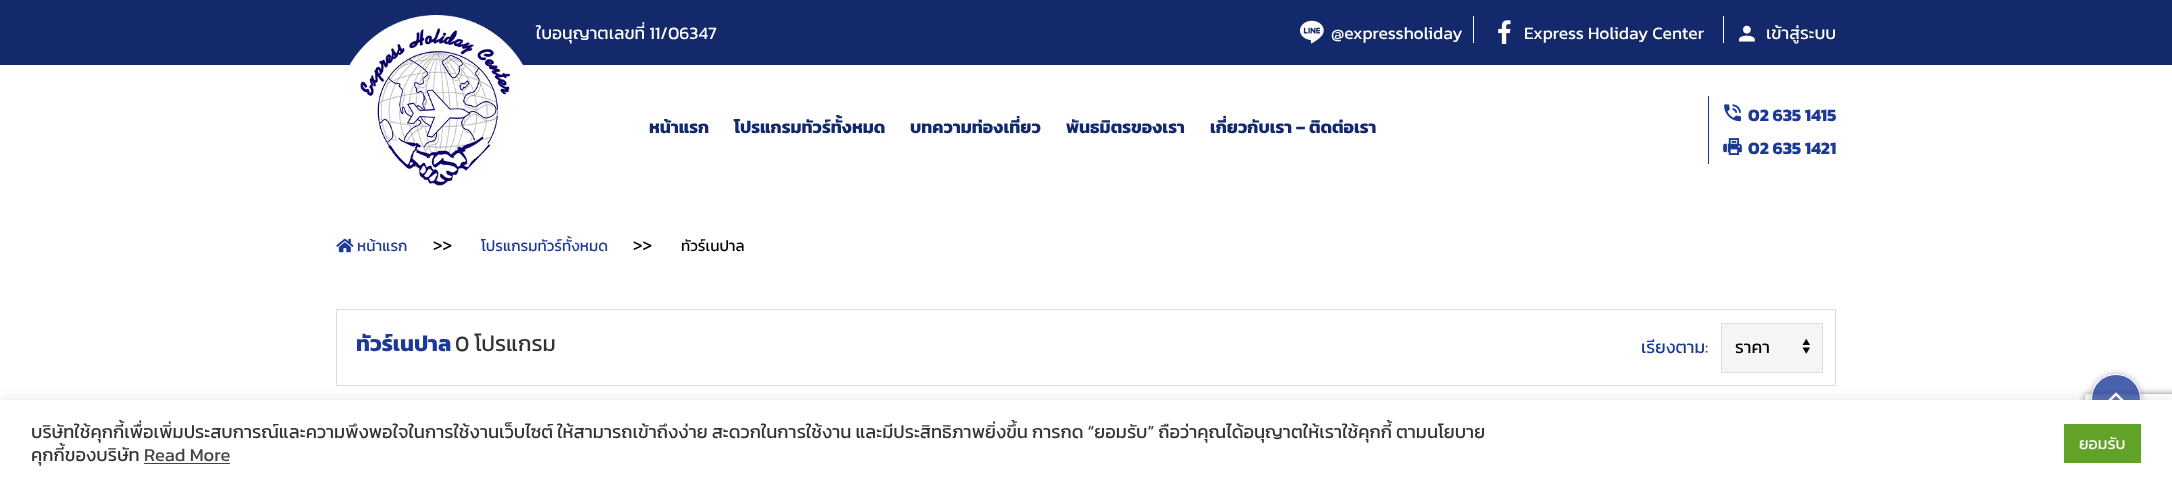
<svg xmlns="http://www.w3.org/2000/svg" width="2172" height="486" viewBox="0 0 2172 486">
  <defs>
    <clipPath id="clip1"><path d="M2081 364H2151V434H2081ZM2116 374C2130 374 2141 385 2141 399C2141 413 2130 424 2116 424C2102 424 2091 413 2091 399C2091 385 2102 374 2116 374Z" clip-rule="evenodd"/></clipPath>
    <filter id="blur1" x="-50%" y="-200%" width="200%" height="500%"><feGaussianBlur stdDeviation="3"/></filter>
    <clipPath id="clip2"><path d="M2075 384H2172V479H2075ZM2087.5 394H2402.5C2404 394 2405 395 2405 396.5V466.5C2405 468 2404 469 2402.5 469H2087.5C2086 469 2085 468 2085 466.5V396.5C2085 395 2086 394 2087.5 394Z" clip-rule="evenodd"/></clipPath>
    <filter id="blur2" x="-50%" y="-200%" width="200%" height="500%"><feGaussianBlur stdDeviation="6"/></filter>
  </defs>
  <rect width="100%" height="100%" fill="#ffffff"/>
  <rect x="0" y="0" width="2172" height="65" fill="#14296c"/>
  <text x="536" y="39" font-family="Kanit" font-size="17.5" fill="#ffffff">ใบอนุญาตเลขที่ 11/06347</text>
  <image x="1300" y="20" width="24" height="24" href="img1.png"/>
  <text x="1331" y="39" font-family="Kanit" font-size="17.5" fill="#ffffff">@expressholiday</text>
  <rect x="1723" y="16" width="1" height="27" fill="#ffffff"/>
  <rect x="1473" y="16" width="1" height="27" fill="#ffffff"/>
  <image x="1498" y="20" width="13" height="24" href="img2.png"/>
  <text x="1524" y="39" font-family="Kanit" font-size="17.5" fill="#ffffff">Express Holiday Center</text>
  <image x="1738" y="25" width="17" height="17" href="img3.png"/>
  <text x="1766" y="39" font-family="Kanit" font-size="17.5" fill="#ffffff">เข้าสู่ระบบ</text>
  <image x="349" y="15" width="174" height="171" href="img4.png"/>
  <rect x="1708" y="96" width="1" height="68" fill="#1c3997"/>
  <image x="1724" y="104" width="17" height="18" href="img5.png"/>
  <text x="1748" y="121" font-family="Kanit" font-size="17.5" font-weight="bold" fill="#1c3997">02 635 1415</text>
  <image x="1723" y="138" width="19" height="17" href="img6.png"/>
  <text x="1748" y="154" font-family="Kanit" font-size="17.5" font-weight="bold" fill="#1c3997">02 635 1421</text>
  <text x="649" y="133" font-family="Kanit" font-size="17.5" font-weight="bold" fill="#14296c">หน้าแรก</text>
  <text x="734" y="133" font-family="Kanit" font-size="17.5" font-weight="bold" fill="#14296c">โปรแกรมทัวร์ทั้งหมด</text>
  <text x="910" y="133" font-family="Kanit" font-size="17.5" font-weight="bold" fill="#14296c">บทความท่องเที่ยว</text>
  <text x="1066" y="133" font-family="Kanit" font-size="17.5" font-weight="bold" fill="#14296c">พันธมิตรของเรา</text>
  <text x="1210" y="133" font-family="Kanit" font-size="17.5" font-weight="bold" fill="#14296c">เกี่ยวกับเรา – ติดต่อเรา</text>
  <image x="336" y="238" width="18" height="15" href="img7.png"/>
  <text x="357" y="251" font-family="Kanit" font-size="15.25" fill="#1c3997">หน้าแรก</text>
  <text x="433" y="251" font-family="Kanit" font-size="17.5" fill="#000000">&gt;&gt;</text>
  <text x="481" y="251" font-family="Kanit" font-size="15.25" fill="#1c3997">โปรแกรมทัวร์ทั้งหมด</text>
  <text x="633" y="251" font-family="Kanit" font-size="17.5" fill="#000000">&gt;&gt;</text>
  <text x="681" y="251" font-family="Kanit" font-size="15.25" fill="#000000">ทัวร์เนปาล</text>
  <rect x="336.5" y="309.5" width="1499" height="76" fill="none" stroke="#dddddd"/>
  <text x="356" y="351" font-family="Kanit" font-size="22" font-weight="bold" fill="#1c3997">ทัวร์เนปาล</text>
  <text x="455" y="351" font-family="Kanit" font-size="22" fill="#333333">0 โปรแกรม</text>
  <text x="1641" y="353" font-family="Kanit" font-size="17.5" fill="#1c3997">เรียงตาม:</text>
  <rect x="1722" y="324" width="100" height="48" fill="#f5f5f5"/>
  <image x="1802" y="338" width="8" height="16" href="img8.png"/>
  <rect x="1721.5" y="323.5" width="101" height="49" fill="none" stroke="#dddddd"/>
  <text x="1735" y="353" font-family="Kanit" font-size="17.5" fill="#000000">ราคา</text>
  <g clip-path="url(#clip1)">
    <rect x="2091" y="374" width="50" height="50" rx="25" fill="#000000" fill-opacity="0.3" filter="url(#blur1)"/>
  </g>
  <g clip-path="url(#clip2)">
    <rect x="2085" y="394" width="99" height="75" rx="2.5" fill="#808080" filter="url(#blur1)"/>
  </g>
  <circle cx="2116" cy="399" r="24.5" fill="#1c3997" fill-opacity="0.8" stroke="#ffffff"/>
  <path d="M2106 404L2116 394L2126 404" fill="none" stroke="#ffffff" stroke-width="2.5"/>
  <rect x="0" y="399" width="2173" height="86" fill="#acabab" fill-opacity="0.3" filter="url(#blur2)"/>
  <rect x="0" y="400" width="2172" height="86" fill="#ffffff"/>
  <text x="31" y="438" word-spacing="-0.25" font-family="Kanit" font-size="18.33" fill="#333333">บริษัทใช้คุกกี้เพื่อเพิ่มประสบการณ์และความพึงพอใจในการใช้งานเว็บไซต์ ให้สามารถเข้าถึงง่าย สะดวกในการใช้งาน และมีประสิทธิภาพยิ่งขึ้น การกด “ยอมรับ” ถือว่าคุณได้อนุญาตให้เราใช้คุกกี้ ตามนโยบาย</text>
  <text x="31" y="461" font-family="Kanit" font-size="18.33" fill="#333333">คุกกี้ของบริษัท</text>
  <text x="144" y="461" font-family="Kanit" font-size="18.33" fill="#444444">Read More</text>
  <rect x="144" y="463" width="86" height="1" fill="#444444"/>
  <rect x="2064" y="424" width="77" height="39" fill="#61a229"/>
  <text x="2079" y="449" font-family="Kanit" font-size="16" fill="#ffffff">ยอมรับ</text>
</svg>
